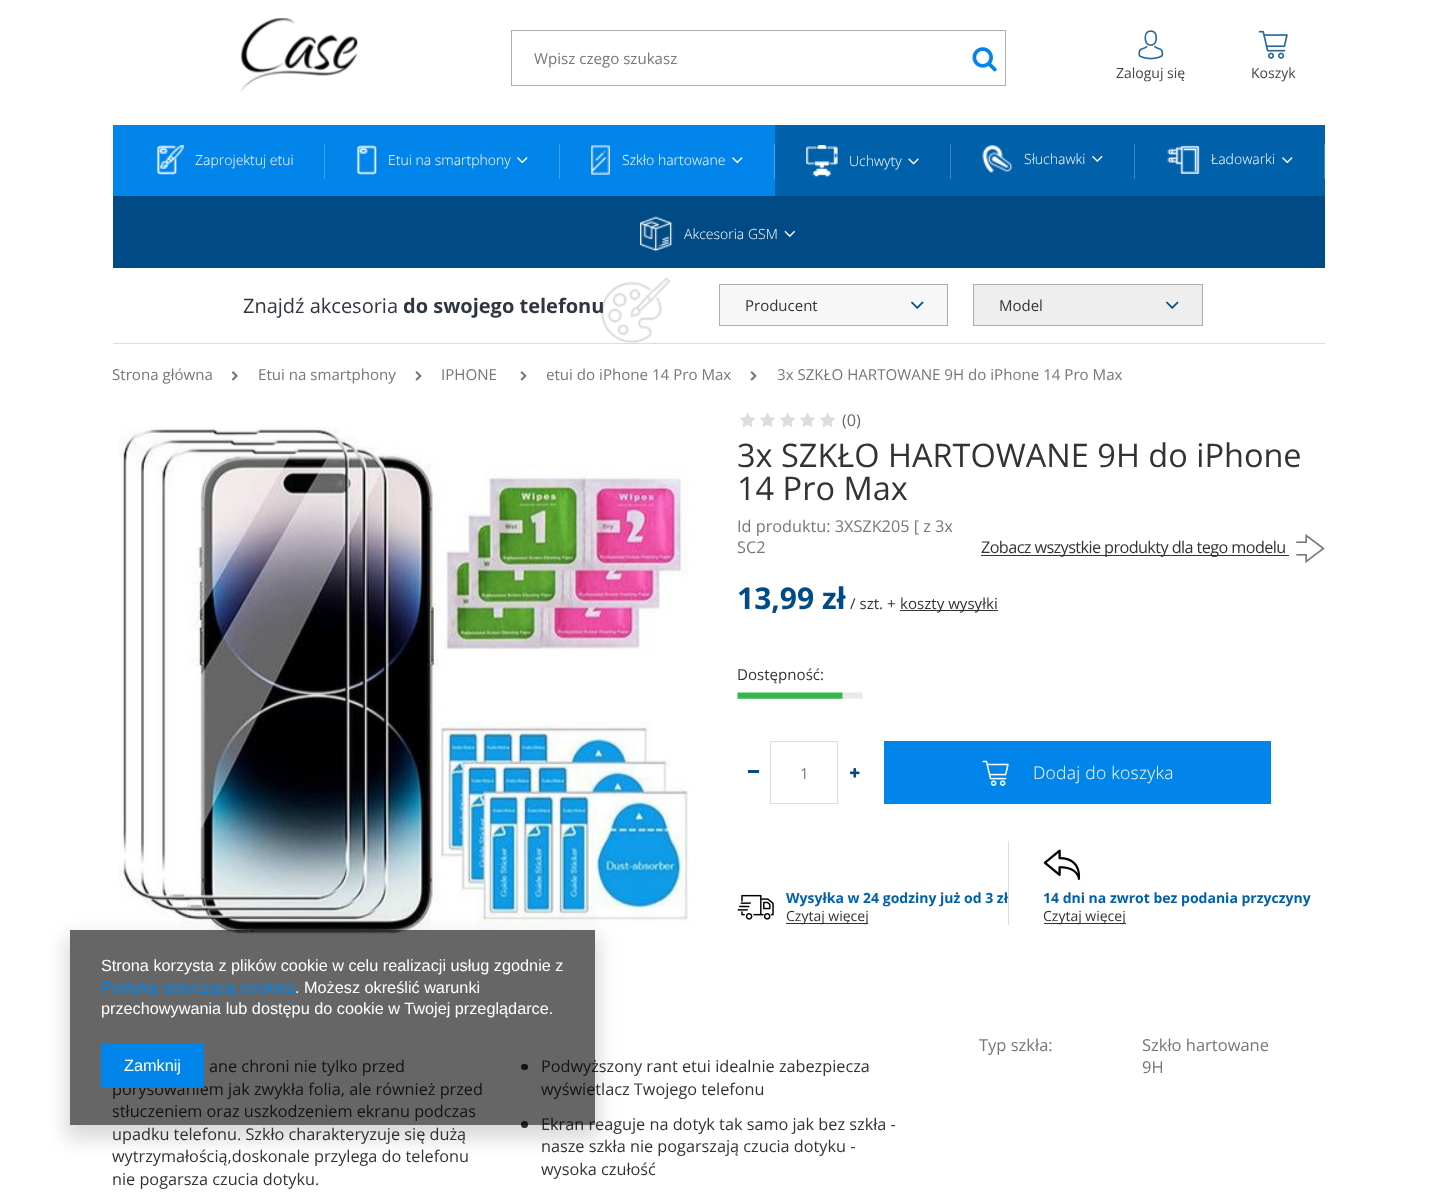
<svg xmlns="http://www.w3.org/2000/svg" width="1436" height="1194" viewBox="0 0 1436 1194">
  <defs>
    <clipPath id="clip1"><path d="M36 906H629V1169H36ZM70 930H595V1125H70Z" clip-rule="evenodd"/></clipPath>
    <filter id="blur1" x="-50%" y="-200%" width="200%" height="500%"><feGaussianBlur stdDeviation="9.5"/></filter>
  </defs>
  <rect width="100%" height="100%" fill="#ffffff"/>
  <image x="240" y="18" width="119" height="74" href="img1.png"/>
  <rect x="511.5" y="30.5" width="494" height="55" fill="none" stroke="#aeaeae"/>
  <text x="534" y="64" font-family="Open Sans" font-size="15.1" fill="#777777">Wpisz czego szukasz</text>
  <image x="972" y="47" width="25" height="25" href="img2.png"/>
  <image x="1138" y="30" width="26" height="30" href="img3.png"/>
  <text x="1116" y="78" font-family="Open Sans" font-size="14" fill="#444444">Zaloguj się</text>
  <image x="1258" y="30" width="30" height="29" href="img4.png"/>
  <text x="1251" y="78" font-family="Open Sans" font-size="14" fill="#444444">Koszyk</text>
  <rect x="113" y="125" width="662" height="71" fill="#0285ea"/>
  <image x="156" y="145" width="28" height="30" href="img5.png"/>
  <text x="195" y="165" font-family="Open Sans" font-size="14" font-weight="300" fill="#ffffff">Zaprojektuj etui</text>
  <rect x="324" y="144" width="1" height="35" fill="#41a4ef"/>
  <image x="356" y="145" width="21" height="30" href="img6.png"/>
  <text x="388" y="165" font-family="Open Sans" font-size="14" font-weight="300" fill="#ffffff">Etui na smartphony</text>
  <image x="517" y="157" width="11" height="7" href="img7.png"/>
  <rect x="559" y="144" width="1" height="35" fill="#41a4ef"/>
  <image x="591" y="145" width="19" height="30" href="img8.png"/>
  <text x="622" y="165" font-family="Open Sans" font-size="14" font-weight="300" fill="#ffffff">Szkło hartowane</text>
  <image x="732" y="157" width="11" height="7" href="img7.png"/>
  <rect x="774" y="144" width="1" height="35" fill="#41a4ef"/>
  <rect x="775" y="125" width="550" height="71" fill="#0061ab"/>
  <image x="806" y="145" width="32" height="32" href="img9.png"/>
  <text x="849" y="166" font-family="Open Sans" font-size="14" font-weight="300" fill="#ffffff">Uchwyty</text>
  <image x="908" y="158" width="11" height="7" href="img10.png"/>
  <rect x="950" y="144" width="1" height="35" fill="#4089c0"/>
  <image x="982" y="145" width="31" height="28" href="img11.png"/>
  <text x="1024" y="164" font-family="Open Sans" font-size="14" font-weight="300" fill="#ffffff">Słuchawki</text>
  <image x="1092" y="155" width="11" height="7" href="img12.png"/>
  <rect x="1134" y="144" width="1" height="35" fill="#4089c0"/>
  <image x="1167" y="145" width="33" height="29" href="img13.png"/>
  <text x="1211" y="164" font-family="Open Sans" font-size="14" font-weight="300" fill="#ffffff">Ładowarki</text>
  <image x="1282" y="157" width="11" height="7" href="img14.png"/>
  <rect x="1324" y="144" width="1" height="35" fill="#4089c0"/>
  <rect x="113" y="196" width="1212" height="72" fill="#004b85"/>
  <image x="640" y="216" width="33" height="36" href="img15.png"/>
  <text x="684" y="239" font-family="Open Sans" font-size="14" font-weight="300" fill="#ffffff">Akcesoria GSM</text>
  <image x="784" y="230" width="11" height="7" href="img16.png"/>
  <rect x="113" y="343" width="1212" height="1" fill="#dddddd"/>
  <image x="601" y="277" width="69" height="66" href="img17.png"/>
  <text x="243" y="313" font-family="Open Sans" font-size="20" fill="#2f3640">Znajdź akcesoria</text>
  <text x="403" y="313" font-family="Open Sans" font-size="20" font-weight="bold" fill="#2f3640">do swojego telefonu</text>
  <rect x="719.5" y="284.5" width="228" height="41" fill="#f7f7f7" stroke="#aeaeae"/>
  <text x="745" y="311" font-family="Open Sans" font-size="15" fill="#333333">Producent</text>
  <image x="911" y="301" width="13" height="8" href="img18.png"/>
  <rect x="973.5" y="284.5" width="229" height="41" fill="#eeeeee" stroke="#aeaeae"/>
  <text x="999" y="311" font-family="Open Sans" font-size="15" fill="#333333">Model</text>
  <image x="1166" y="301" width="13" height="8" href="img19.png"/>
  <text x="112" y="380" font-family="Open Sans" font-size="15.1" fill="#777777">Strona główna</text>
  <image x="231" y="371" width="7" height="10" href="img20.png"/>
  <text x="258" y="380" font-family="Open Sans" font-size="15.1" fill="#777777">Etui na smartphony</text>
  <image x="415" y="371" width="7" height="10" href="img21.png"/>
  <text x="441" y="380" font-family="Open Sans" font-size="15.1" fill="#777777">IPHONE</text>
  <image x="520" y="371" width="7" height="10" href="img21.png"/>
  <text x="546" y="380" font-family="Open Sans" font-size="15.1" fill="#777777">etui do iPhone 14 Pro Max</text>
  <image x="750" y="371" width="7" height="10" href="img21.png"/>
  <text x="777" y="380" font-family="Open Sans" font-size="15.1" fill="#777777">3x SZKŁO HARTOWANE 9H do iPhone 14 Pro Max</text>
  <image x="119" y="427" width="570" height="508" href="img22.png"/>
  <image x="740" y="412" width="15" height="15" href="img23.png"/>
  <image x="760" y="412" width="15" height="15" href="img23.png"/>
  <image x="780" y="412" width="15" height="15" href="img23.png"/>
  <image x="800" y="412" width="15" height="15" href="img23.png"/>
  <image x="820" y="412" width="15" height="15" href="img23.png"/>
  <text x="842" y="426" font-family="Open Sans" font-size="16.25" fill="#666666">(0)</text>
  <text x="737" y="467" font-family="Open Sans" font-size="32.5" fill="#333333">3x SZKŁO HARTOWANE 9H do iPhone</text>
  <text x="737" y="500" font-family="Open Sans" font-size="32.5" fill="#333333">14 Pro Max</text>
  <text x="737" y="532" font-family="Open Sans" font-size="16.25" fill="#777777">Id produktu: 3XSZK205 [ z 3x</text>
  <text x="737" y="553" font-family="Open Sans" font-size="16.25" fill="#777777">SC2</text>
  <rect x="981" y="555" width="308" height="1" fill="#333333"/>
  <text x="981" y="553" font-family="Open Sans" font-size="16.25" letter-spacing="-0.6" fill="#333333">Zobacz wszystkie produkty dla tego modelu</text>
  <image x="1296" y="534" width="29" height="29" href="img24.png"/>
  <text x="737" y="609" font-family="Open Sans" font-size="30" font-weight="bold" fill="#004b85">13,99 zł</text>
  <text x="850" y="609" font-family="Open Sans" font-size="15.1" fill="#333333">/ szt. +</text>
  <rect x="900" y="610" width="98" height="1" fill="#333333"/>
  <text x="900" y="609" font-family="Open Sans" font-size="15.1" fill="#333333">koszty wysyłki</text>
  <text x="737" y="680" font-family="Open Sans" font-size="15.1" fill="#333333">Dostępność:</text>
  <image x="737" y="692" width="126" height="7" href="img25.png"/>
  <rect x="748" y="770" width="11" height="3" fill="#004b85"/>
  <rect x="770.5" y="741.5" width="67" height="62" fill="none" stroke="#dddddd"/>
  <text x="800" y="779" font-family="Open Sans" font-size="15.1" fill="#777777">1</text>
  <image x="850" y="768" width="10" height="10" href="img26.png"/>
  <rect x="884" y="741" width="387" height="63" fill="#0285ea"/>
  <image x="982" y="760" width="27" height="26" href="img27.png"/>
  <text x="1033" y="779" font-family="Open Sans" font-size="17.5" font-weight="300" letter-spacing="0.25" fill="#ffffff">Dodaj do koszyka</text>
  <image x="737" y="894" width="37" height="26" href="img28.png"/>
  <text x="786" y="903" font-family="Open Sans" font-size="14" font-weight="bold" fill="#0061ab">Wysyłka w 24 godziny już od 3 zł</text>
  <rect x="786" y="923" width="82" height="1" fill="#333333"/>
  <text x="786" y="921" font-family="Open Sans" font-size="14" fill="#333333">Czytaj więcej</text>
  <rect x="1008" y="841" width="1" height="84" fill="#dddddd"/>
  <image x="1043" y="849" width="38" height="31" href="img29.png"/>
  <text x="1043" y="903" font-family="Open Sans" font-size="14" font-weight="bold" fill="#0061ab">14 dni na zwrot bez podania przyczyny</text>
  <rect x="1044" y="923" width="82" height="1" fill="#333333"/>
  <text x="1043" y="921" font-family="Open Sans" font-size="14" fill="#333333">Czytaj więcej</text>
  <text x="209" y="1072" font-family="Open Sans" font-size="16.25" fill="#333333">ane chroni nie tylko przed</text>
  <text x="112" y="1095" font-family="Open Sans" font-size="16.25" fill="#333333">porysowaniem jak zwykła folia, ale również przed</text>
  <text x="112" y="1117" font-family="Open Sans" font-size="16.25" fill="#333333">stłuczeniem oraz uszkodzeniem ekranu podczas</text>
  <text x="112" y="1140" font-family="Open Sans" font-size="16.25" fill="#333333">upadku telefonu. Szkło charakteryzuje się dużą</text>
  <text x="112" y="1162" font-family="Open Sans" font-size="16.25" fill="#333333">wytrzymałością,doskonale przylega do telefonu</text>
  <text x="112" y="1185" font-family="Open Sans" font-size="16.25" fill="#333333">nie pogarsza czucia dotyku.</text>
  <rect x="521" y="1064" width="7" height="6" rx="3" fill="#333333"/>
  <text x="541" y="1072" font-family="Open Sans" font-size="16.25" fill="#333333">Podwyższony rant etui idealnie zabezpiecza</text>
  <text x="541" y="1095" font-family="Open Sans" font-size="16.25" fill="#333333">wyświetlacz Twojego telefonu</text>
  <circle cx="524.5" cy="1124.5" r="3.5" fill="#333333"/>
  <text x="541" y="1130" font-family="Open Sans" font-size="16.25" fill="#333333">Ekran reaguje na dotyk tak samo jak bez szkła -</text>
  <text x="541" y="1152" font-family="Open Sans" font-size="16.25" fill="#333333">nasze szkła nie pogarszają czucia dotyku -</text>
  <text x="541" y="1175" font-family="Open Sans" font-size="16.25" fill="#333333">wysoka czułość</text>
  <text x="979" y="1051" font-family="Open Sans" font-size="16.5" fill="#777777">Typ szkła:</text>
  <text x="1142" y="1051" font-family="Open Sans" font-size="16.5" fill="#777777">Szkło hartowane</text>
  <text x="1142" y="1073" font-family="Open Sans" font-size="16.5" fill="#777777">9H</text>
  <g clip-path="url(#clip1)">
    <rect x="66" y="936" width="533" height="203" fill="#000000" fill-opacity="0.15" filter="url(#blur1)"/>
  </g>
  <rect x="70" y="930" width="525" height="195" fill="#000000" fill-opacity="0.6"/>
  <text x="101" y="971" font-family="Liberation Sans" font-size="16.25" fill="#ffffff">Strona korzysta z plików cookie w celu realizacji usług zgodnie z</text>
  <text x="101" y="993" font-family="Liberation Sans" font-size="16.25" fill="#0285ea">Polityką dotyczącą cookies</text>
  <text x="295" y="993" font-family="Liberation Sans" font-size="16.25" fill="#ffffff">. Możesz określić warunki</text>
  <text x="101" y="1014" font-family="Liberation Sans" font-size="16.25" fill="#ffffff">przechowywania lub dostępu do cookie w Twojej przeglądarce.</text>
  <rect x="101" y="1044" width="103" height="44" fill="#0285ea"/>
  <text x="124" y="1071" font-family="Liberation Sans" font-size="16.25" fill="#ffffff">Zamknij</text>
</svg>
